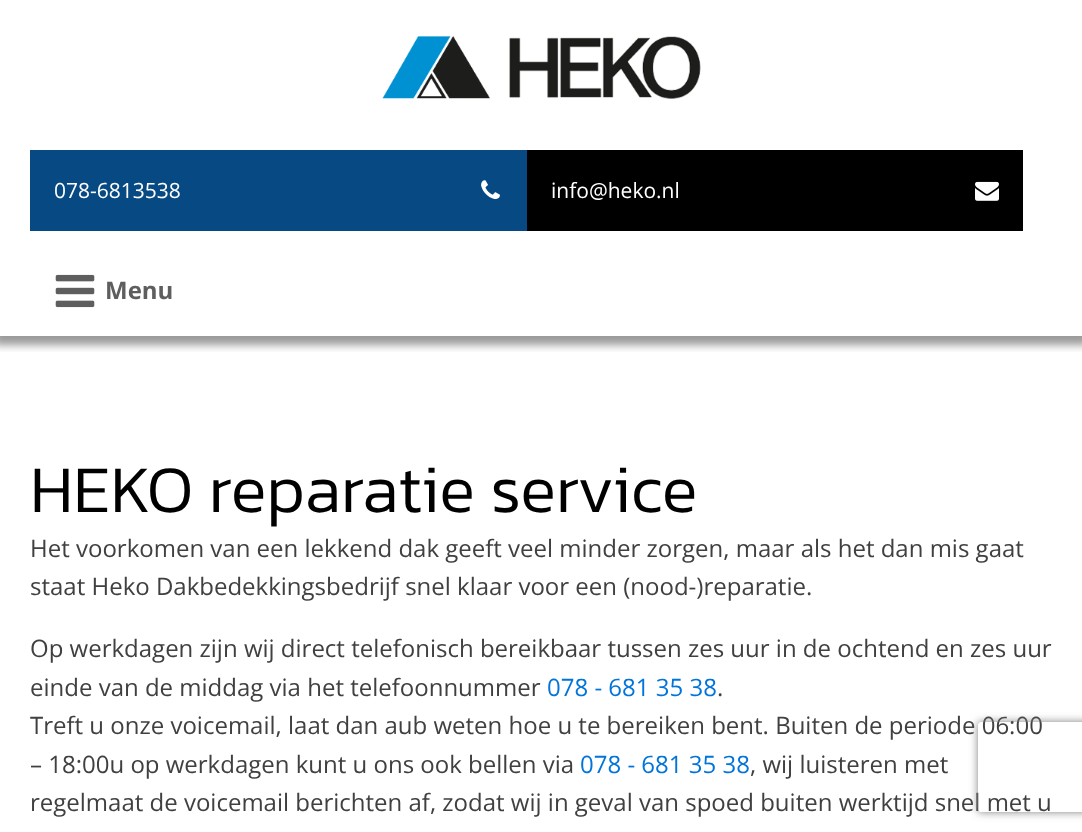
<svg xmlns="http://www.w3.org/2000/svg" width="1082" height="832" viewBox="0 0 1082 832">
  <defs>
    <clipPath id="clip1"><rect x="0" y="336" width="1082" height="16"/></clipPath>
    <filter id="blur1" x="-50%" y="-200%" width="200%" height="500%"><feGaussianBlur stdDeviation="4.5"/></filter>
    <clipPath id="clip2"><path d="M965 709H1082V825H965ZM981 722H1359C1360.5 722 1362 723.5 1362 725V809C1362 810.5 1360.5 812 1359 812H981C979.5 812 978 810.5 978 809V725C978 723.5 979.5 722 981 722Z" clip-rule="evenodd"/></clipPath>
    <filter id="blur2" x="-50%" y="-200%" width="200%" height="500%"><feGaussianBlur stdDeviation="4"/></filter>
  </defs>
  <rect width="100%" height="100%" fill="#ffffff"/>
  <g clip-path="url(#clip1)">
    <rect x="-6" y="-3" width="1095" height="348" fill="#000000" fill-opacity="0.4" filter="url(#blur1)"/>
  </g>
  <image x="382" y="36" width="319" height="63" href="img1.png"/>
  <rect x="30" y="150" width="497" height="81" fill="#074982"/>
  <text x="54" y="198" font-family="Open Sans" font-size="21" fill="#ffffff">078-6813538</text>
  <image x="481" y="180" width="19" height="20" href="img2.png"/>
  <rect x="527" y="150" width="496" height="81" fill="#000000"/>
  <text x="551" y="198" font-family="Open Sans" font-size="21" fill="#ffffff">info@heko.nl</text>
  <image x="975" y="181" width="24" height="20" href="img3.png"/>
  <image x="55" y="274" width="40" height="34" href="img4.png"/>
  <text x="105" y="299" font-family="Open Sans" font-size="24" font-weight="bold" fill="#5f5e5e">Menu</text>
  <text x="30" y="512" font-family="Kanit" font-size="67.1" font-weight="300" fill="#000000">HEKO reparatie service</text>
  <text x="30" y="557" font-family="Open Sans" font-size="24" fill="#404040">Het voorkomen van een lekkend dak geeft veel minder zorgen, maar als het dan mis gaat</text>
  <text x="30" y="595" font-family="Open Sans" font-size="24" fill="#404040">staat Heko Dakbedekkingsbedrijf snel klaar voor een (nood-)reparatie.</text>
  <text x="30" y="657" font-family="Open Sans" font-size="24" fill="#404040">Op werkdagen zijn wij direct telefonisch bereikbaar tussen zes uur in de ochtend en zes uur</text>
  <text x="30" y="696" font-family="Open Sans" font-size="24" fill="#404040">einde van de middag via het telefoonnummer</text>
  <text x="547" y="696" font-family="Open Sans" font-size="24" fill="#0074db">078 - 681 35 38</text>
  <text x="717" y="696" font-family="Open Sans" font-size="24" fill="#404040">.</text>
  <text x="30" y="734" font-family="Open Sans" font-size="24" fill="#404040">Treft u onze voicemail, laat dan aub weten hoe u te bereiken bent. Buiten de periode 06:00</text>
  <text x="30" y="773" font-family="Open Sans" font-size="24" fill="#404040">– 18:00u op werkdagen kunt u ons ook bellen via</text>
  <text x="580" y="773" font-family="Open Sans" font-size="24" fill="#0074db">078 - 681 35 38</text>
  <text x="750" y="773" font-family="Open Sans" font-size="24" fill="#404040">, wij luisteren met</text>
  <text x="30" y="811" font-family="Open Sans" font-size="24" fill="#404040">regelmaat de voicemail berichten af, zodat wij in geval van spoed buiten werktijd snel met u</text>
  <g clip-path="url(#clip2)">
    <rect x="978" y="722" width="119" height="90" rx="3" fill="#808080" filter="url(#blur2)"/>
  </g>
</svg>
